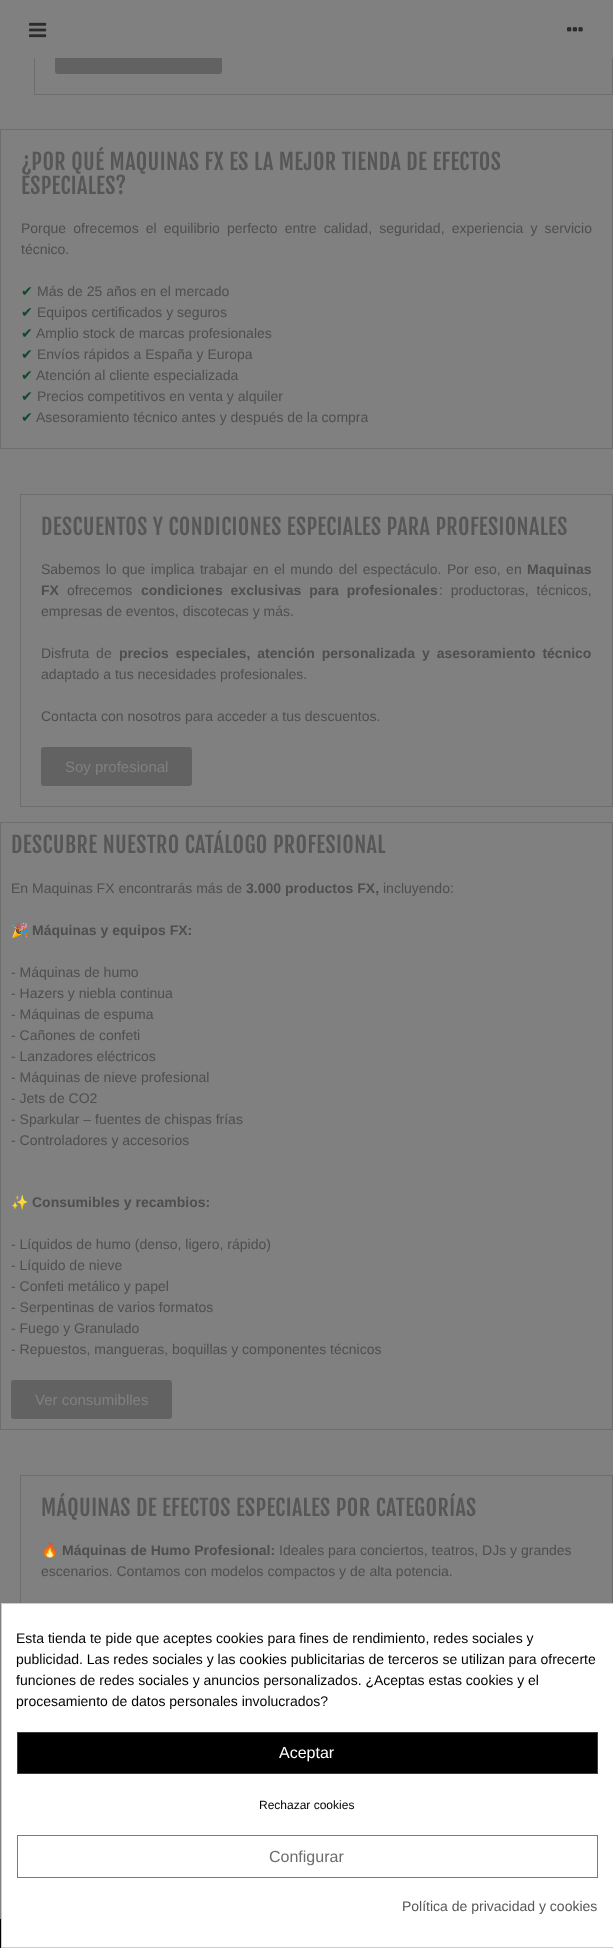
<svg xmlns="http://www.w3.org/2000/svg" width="613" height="1948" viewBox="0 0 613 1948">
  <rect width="100%" height="100%" fill="#808080"/>
  <rect x="34.5" y="-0.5" width="578" height="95" fill="none" stroke="#6d6d6d"/>
  <rect x="55" y="35" width="167" height="39" rx="3" fill="#626262"/>
  <rect x="34" y="0" width="579" height="58" fill="#808080"/>
  <image x="29" y="22" width="18" height="16" href="img1.png"/>
  <image x="567" y="27" width="16" height="5" href="img2.png"/>
  <rect x="0.5" y="129.5" width="612" height="319" fill="none" stroke="#6d6d6d"/>
  <text x="21" y="170" font-family="Fjalla One" font-size="22" letter-spacing="0.4" fill="#565656">¿POR QUÉ MAQUINAS FX ES LA MEJOR TIENDA DE EFECTOS</text>
  <text x="21" y="194" font-family="Fjalla One" font-size="22" letter-spacing="0.4" fill="#565656">ESPECIALES?</text>
  <text x="21" y="233" word-spacing="3.25" font-family="Liberation Sans" font-size="14" fill="#4e4e4e">Porque ofrecemos el equilibrio perfecto entre calidad, seguridad, experiencia y servicio</text>
  <text x="21" y="254" font-family="Liberation Sans" font-size="14" fill="#4e4e4e">técnico.</text>
  <text x="21" y="296" font-family="DejaVu Sans" font-size="14" fill="#11472a">✔</text>
  <text x="37" y="296" font-family="Liberation Sans" font-size="14" fill="#4e4e4e">Más de 25 años en el mercado</text>
  <text x="21" y="317" font-family="DejaVu Sans" font-size="14" fill="#11472a">✔</text>
  <text x="37" y="317" font-family="Liberation Sans" font-size="14" fill="#4e4e4e">Equipos certificados y seguros</text>
  <text x="21" y="338" font-family="DejaVu Sans" font-size="14" fill="#11472a">✔</text>
  <text x="36" y="338" font-family="Liberation Sans" font-size="14" fill="#4e4e4e">Amplio stock de marcas profesionales</text>
  <text x="21" y="359" font-family="DejaVu Sans" font-size="14" fill="#11472a">✔</text>
  <text x="37" y="359" font-family="Liberation Sans" font-size="14" fill="#4e4e4e">Envíos rápidos a España y Europa</text>
  <text x="21" y="380" font-family="DejaVu Sans" font-size="14" fill="#11472a">✔</text>
  <text x="36" y="380" font-family="Liberation Sans" font-size="14" fill="#4e4e4e">Atención al cliente especializada</text>
  <text x="21" y="401" font-family="DejaVu Sans" font-size="14" fill="#11472a">✔</text>
  <text x="37" y="401" font-family="Liberation Sans" font-size="14" fill="#4e4e4e">Precios competitivos en venta y alquiler</text>
  <text x="21" y="422" font-family="DejaVu Sans" font-size="14" fill="#11472a">✔</text>
  <text x="36" y="422" font-family="Liberation Sans" font-size="14" fill="#4e4e4e">Asesoramiento técnico antes y después de la compra</text>
  <rect x="20.5" y="494.5" width="592" height="312" fill="none" stroke="#6d6d6d"/>
  <text x="41" y="535" font-family="Fjalla One" font-size="22" letter-spacing="0.4" fill="#565656">DESCUENTOS Y CONDICIONES ESPECIALES PARA PROFESIONALES</text>
  <text x="41" y="574" word-spacing="1.6" font-family="Liberation Sans" font-size="14" fill="#4e4e4e">Sabemos lo que implica trabajar en el mundo del espectáculo. Por eso, en</text>
  <text x="527" y="574" font-family="Liberation Sans" font-size="14" font-weight="bold" fill="#4e4e4e">Maquinas</text>
  <text x="41" y="595" font-family="Liberation Sans" font-size="14" font-weight="bold" fill="#4e4e4e">FX</text>
  <text x="67" y="595" font-family="Liberation Sans" font-size="14" fill="#4e4e4e">ofrecemos</text>
  <text x="141" y="595" word-spacing="4" font-family="Liberation Sans" font-size="14" font-weight="bold" fill="#4e4e4e">condiciones exclusivas para profesionales</text>
  <text x="439" y="595" word-spacing="4" font-family="Liberation Sans" font-size="14" fill="#4e4e4e">: productoras, técnicos,</text>
  <text x="41" y="616" font-family="Liberation Sans" font-size="14" fill="#4e4e4e">empresas de eventos, discotecas y más.</text>
  <text x="41" y="658" word-spacing="3" font-family="Liberation Sans" font-size="14" fill="#4e4e4e">Disfruta de</text>
  <text x="119" y="658" word-spacing="3" font-family="Liberation Sans" font-size="14" font-weight="bold" fill="#4e4e4e">precios especiales, atención personalizada y asesoramiento técnico</text>
  <text x="41" y="679" font-family="Liberation Sans" font-size="14" fill="#4e4e4e">adaptado a tus necesidades profesionales.</text>
  <text x="41" y="721" font-family="Liberation Sans" font-size="14" fill="#4e4e4e">Contacta con nosotros para acceder a tus descuentos.</text>
  <rect x="41" y="747" width="151" height="39" rx="3" fill="#626262"/>
  <text x="65" y="772" font-family="Liberation Sans" font-size="15" fill="#808080">Soy profesional</text>
  <rect x="0.5" y="822.5" width="612" height="607" fill="none" stroke="#6d6d6d"/>
  <text x="11" y="853" font-family="Fjalla One" font-size="22" letter-spacing="0.4" fill="#565656">DESCUBRE NUESTRO CATÁLOGO PROFESIONAL</text>
  <text x="11" y="893" font-family="Liberation Sans" font-size="14" fill="#4e4e4e">En Maquinas FX encontrarás más de</text>
  <text x="246" y="893" font-family="Liberation Sans" font-size="14" font-weight="bold" fill="#4e4e4e">3.000 productos FX,</text>
  <text x="383" y="893" font-family="Liberation Sans" font-size="14" fill="#4e4e4e">incluyendo:</text>
  <text x="11" y="935" font-family="Noto Color Emoji" font-size="14" font-weight="bold" fill="#4e4e4e">🎉</text>
  <text x="32" y="935" font-family="Liberation Sans" font-size="14" font-weight="bold" fill="#4e4e4e">Máquinas y equipos FX:</text>
  <text x="11" y="977" font-family="Liberation Sans" font-size="14" fill="#4e4e4e">- Máquinas de humo</text>
  <text x="11" y="998" font-family="Liberation Sans" font-size="14" fill="#4e4e4e">- Hazers y niebla continua</text>
  <text x="11" y="1019" font-family="Liberation Sans" font-size="14" fill="#4e4e4e">- Máquinas de espuma</text>
  <text x="11" y="1040" font-family="Liberation Sans" font-size="14" fill="#4e4e4e">- Cañones de confeti</text>
  <text x="11" y="1061" font-family="Liberation Sans" font-size="14" fill="#4e4e4e">- Lanzadores eléctricos</text>
  <text x="11" y="1082" font-family="Liberation Sans" font-size="14" fill="#4e4e4e">- Máquinas de nieve profesional</text>
  <text x="11" y="1103" font-family="Liberation Sans" font-size="14" fill="#4e4e4e">- Jets de CO2</text>
  <text x="11" y="1124" font-family="Liberation Sans" font-size="14" fill="#4e4e4e">- Sparkular – fuentes de chispas frías</text>
  <text x="11" y="1145" font-family="Liberation Sans" font-size="14" fill="#4e4e4e">- Controladores y accesorios</text>
  <text x="11" y="1207" font-family="Noto Color Emoji" font-size="14" font-weight="bold" fill="#4e4e4e">✨</text>
  <text x="32" y="1207" font-family="Liberation Sans" font-size="14" font-weight="bold" fill="#4e4e4e">Consumibles y recambios:</text>
  <text x="11" y="1249" font-family="Liberation Sans" font-size="14" fill="#4e4e4e">- Líquidos de humo (denso, ligero, rápido)</text>
  <text x="11" y="1270" font-family="Liberation Sans" font-size="14" fill="#4e4e4e">- Líquido de nieve</text>
  <text x="11" y="1291" font-family="Liberation Sans" font-size="14" fill="#4e4e4e">- Confeti metálico y papel</text>
  <text x="11" y="1312" font-family="Liberation Sans" font-size="14" fill="#4e4e4e">- Serpentinas de varios formatos</text>
  <text x="11" y="1333" font-family="Liberation Sans" font-size="14" fill="#4e4e4e">- Fuego y Granulado</text>
  <text x="11" y="1354" font-family="Liberation Sans" font-size="14" fill="#4e4e4e">- Repuestos, mangueras, boquillas y componentes técnicos</text>
  <rect x="11" y="1380" width="161" height="39" rx="3" fill="#626262"/>
  <text x="35" y="1405" font-family="Liberation Sans" font-size="15" fill="#808080">Ver consumiblles</text>
  <rect x="20.5" y="1475.5" width="592" height="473" fill="none" stroke="#6d6d6d"/>
  <text x="41" y="1516" font-family="Fjalla One" font-size="22" letter-spacing="0.4" fill="#565656">MÁQUINAS DE EFECTOS ESPECIALES POR CATEGORÍAS</text>
  <text x="41" y="1555" font-family="Noto Color Emoji" font-size="14" font-weight="bold" fill="#4e4e4e">🔥</text>
  <text x="62" y="1555" font-family="Liberation Sans" font-size="14" font-weight="bold" fill="#4e4e4e">Máquinas de Humo Profesional:</text>
  <text x="279" y="1555" font-family="Liberation Sans" font-size="14" fill="#4e4e4e">Ideales para conciertos, teatros, DJs y grandes</text>
  <text x="41" y="1576" font-family="Liberation Sans" font-size="14" fill="#4e4e4e">escenarios. Contamos con modelos compactos y de alta potencia.</text>
  <rect x="1.5" y="1603.5" width="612" height="344" fill="#ffffff" stroke="#cccccc"/>
  <text x="16" y="1643" font-family="Liberation Sans" font-size="14" fill="#000000">Esta tienda te pide que aceptes cookies para fines de rendimiento, redes sociales y</text>
  <text x="16" y="1664" font-family="Liberation Sans" font-size="14" fill="#000000">publicidad. Las redes sociales y las cookies publicitarias de terceros se utilizan para ofrecerte</text>
  <text x="16" y="1685" font-family="Liberation Sans" font-size="14" fill="#000000">funciones de redes sociales y anuncios personalizados. ¿Aceptas estas cookies y el</text>
  <text x="16" y="1706" font-family="Liberation Sans" font-size="14" fill="#000000">procesamiento de datos personales involucrados?</text>
  <rect x="17.5" y="1732.5" width="580" height="41" fill="#000000" stroke="#3b3b3b"/>
  <text x="279" y="1758" font-family="Liberation Sans" font-size="16" fill="#ffffff">Aceptar</text>
  <text x="259" y="1809" font-family="Liberation Sans" font-size="12" fill="#000000">Rechazar cookies</text>
  <rect x="17.5" y="1835.5" width="580" height="42" fill="none" stroke="#7a7a7a"/>
  <text x="269" y="1862" font-family="Liberation Sans" font-size="16" fill="#6c6c6c">Configurar</text>
  <text x="402" y="1911" font-family="Liberation Sans" font-size="14" fill="#565656">Política de privacidad y cookies</text>
  <rect x="0" y="1919" width="1" height="29" fill="#000000"/>
</svg>
